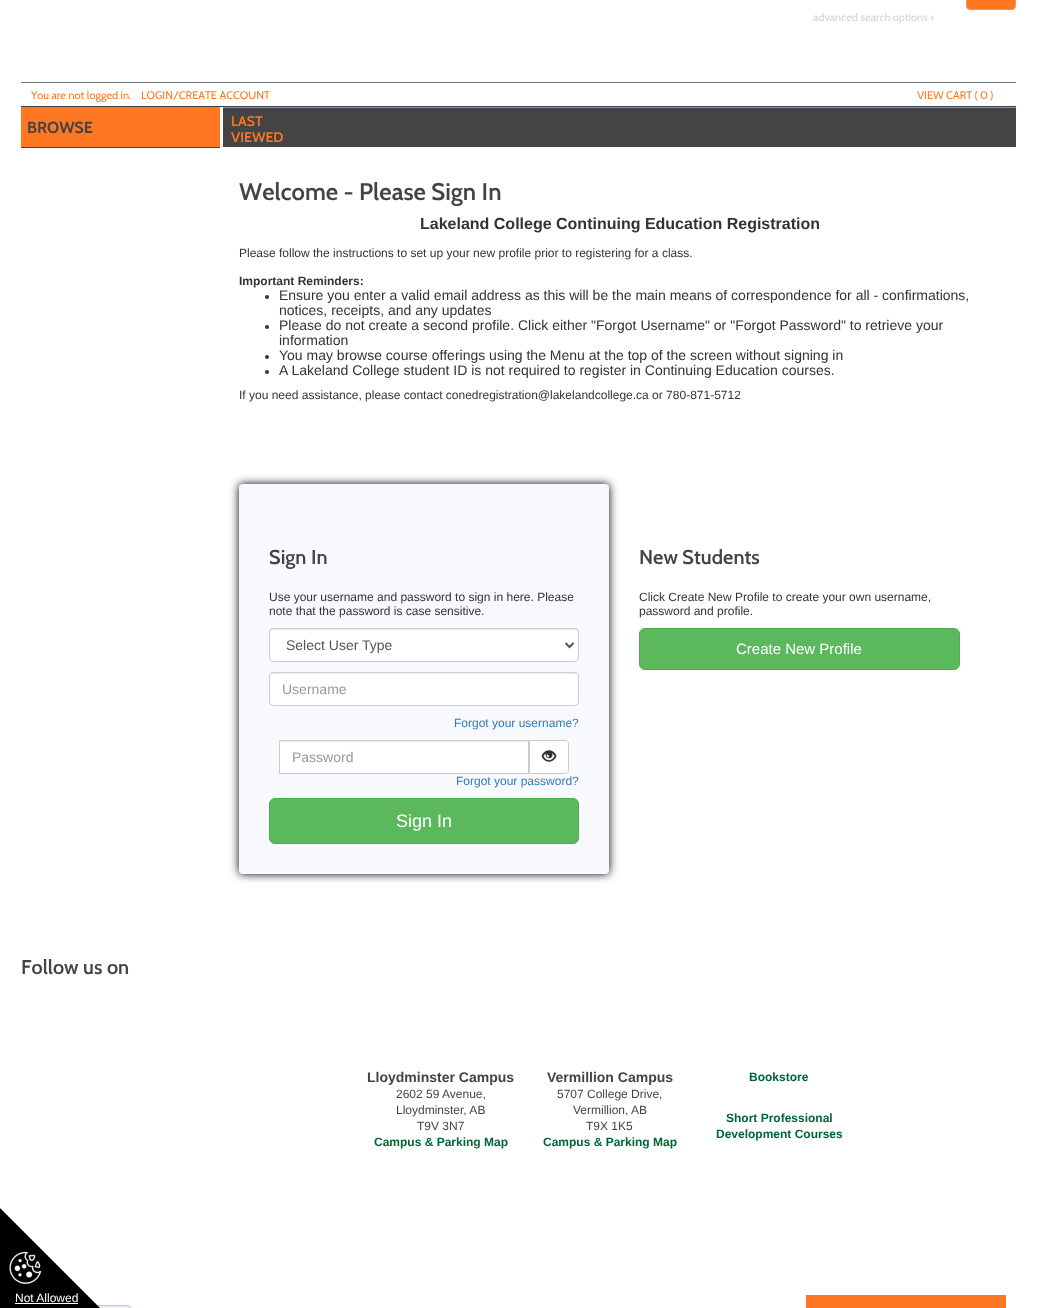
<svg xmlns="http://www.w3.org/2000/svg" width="1037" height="1308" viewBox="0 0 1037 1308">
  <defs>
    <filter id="blur1" x="-50%" y="-200%" width="200%" height="500%"><feGaussianBlur stdDeviation="5"/></filter>
  </defs>
  <rect width="100%" height="100%" fill="#ffffff"/>
  <rect x="966.5" y="-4.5" width="49" height="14" rx="3.5" fill="#fe7722" stroke="#ea9661"/>
  <text x="813" y="21" font-family="Cabin" font-size="11" fill="#d1d3d4">advanced search options ›</text>
  <rect x="21" y="82" width="995" height="1" fill="#70787c"/>
  <rect x="21" y="106" width="995" height="1" fill="#3b4144"/>
  <text x="31" y="99" font-family="Cabin" font-size="11" fill="#fe7722">You are not logged in.</text>
  <text x="141" y="99" font-family="Cabin" font-size="11" fill="#fe7722">LOGIN/CREATE ACCOUNT</text>
  <text x="917" y="99" font-family="Cabin" font-size="11" fill="#fe7722">VIEW CART ( 0 )</text>
  <rect x="21" y="107" width="199" height="40" fill="#fe7722"/>
  <rect x="21" y="147" width="199" height="1" fill="#444444"/>
  <text x="27" y="133" font-family="Cabin" font-size="16" font-weight="bold" fill="#444444">BROWSE</text>
  <rect x="223" y="108" width="793" height="39" fill="#444444"/>
  <rect x="223" y="107" width="793" height="1" fill="#fe7722"/>
  <text x="231" y="126" font-family="Cabin" font-size="14" font-weight="600" fill="#fe7722">LAST</text>
  <text x="231" y="142" font-family="Cabin" font-size="14" font-weight="600" fill="#fe7722">VIEWED</text>
  <text x="239" y="200" font-family="Cabin" font-size="24" font-weight="600" fill="#444444">Welcome - Please Sign In</text>
  <text x="420" y="229" font-family="Liberation Sans" font-size="16" font-weight="bold" fill="#333333">Lakeland College Continuing Education Registration</text>
  <text x="239" y="257" font-family="Liberation Sans" font-size="12" fill="#333333">Please follow the instructions to set up your new profile prior to registering for a class.</text>
  <text x="239" y="285" font-family="Liberation Sans" font-size="12" font-weight="bold" fill="#333333">Important Reminders:</text>
  <circle cx="267" cy="297" r="2" fill="#333333"/>
  <text x="279" y="300" font-family="Liberation Sans" font-size="14" fill="#333333">Ensure you enter a valid email address as this will be the main means of correspondence for all - confirmations,</text>
  <text x="279" y="315" font-family="Liberation Sans" font-size="14" fill="#333333">notices, receipts, and any updates</text>
  <circle cx="267" cy="327" r="2" fill="#333333"/>
  <text x="279" y="330" font-family="Liberation Sans" font-size="14" fill="#333333">Please do not create a second profile. Click either "Forgot Username" or "Forgot Password" to retrieve your</text>
  <text x="279" y="345" font-family="Liberation Sans" font-size="14" fill="#333333">information</text>
  <circle cx="267" cy="357" r="2" fill="#333333"/>
  <text x="279" y="360" font-family="Liberation Sans" font-size="14" fill="#333333">You may browse course offerings using the Menu at the top of the screen without signing in</text>
  <circle cx="267" cy="372" r="2" fill="#333333"/>
  <text x="279" y="375" font-family="Liberation Sans" font-size="14" fill="#333333">A Lakeland College student ID is not required to register in Continuing Education courses.</text>
  <text x="239" y="399" font-family="Liberation Sans" font-size="12" fill="#333333">If you need assistance, please contact conedregistration@lakelandcollege.ca or 780-871-5712</text>
  <rect x="239" y="484" width="370" height="390" rx="4" fill="#000000" filter="url(#blur1)"/>
  <rect x="239" y="484" width="370" height="390" rx="4" fill="#f8f9fc"/>
  <text x="269" y="564" font-family="Cabin" font-size="20" font-weight="600" fill="#444444">Sign In</text>
  <text x="269" y="601" font-family="Liberation Sans" font-size="12" fill="#333333">Use your username and password to sign in here. Please</text>
  <text x="269" y="615" font-family="Liberation Sans" font-size="12" fill="#333333">note that the password is case sensitive.</text>
  <rect x="269" y="628" width="310" height="34" rx="4" fill="#ffffff"/>
  <path d="M273 630H575C577 630 578 631 578 633L577 630L576 629H273C271 629 270 631 270 633C270 631 271 630 273 630Z" fill="#ececec"/>
  <rect x="269.5" y="628.5" width="309" height="33" rx="3.5" fill="none" stroke="#cccccc"/>
  <path d="M565.5 643L569.5 647L573.5 643" fill="none" stroke="#555555" stroke-width="2"/>
  <text x="286" y="650" font-family="Liberation Sans" font-size="14" fill="#555555">Select User Type</text>
  <rect x="269" y="672" width="310" height="34" rx="4" fill="#ffffff"/>
  <path d="M273 674H575C577 674 578 675 578 677L577 674L576 673H273C271 673 270 675 270 677C270 675 271 674 273 674Z" fill="#ececec"/>
  <rect x="269.5" y="672.5" width="309" height="33" rx="3.5" fill="none" stroke="#cccccc"/>
  <text x="282" y="694" font-family="Liberation Sans" font-size="14" fill="#999999">Username</text>
  <text x="454" y="727" font-family="Liberation Sans" font-size="12" fill="#337ab7">Forgot your username?</text>
  <rect x="280" y="742" width="248" height="31" fill="#ffffff"/>
  <rect x="280" y="741" width="248" height="1" fill="#ececec"/>
  <rect x="279.5" y="740.5" width="249" height="33" fill="none" stroke="#cccccc"/>
  <text x="292" y="762" font-family="Liberation Sans" font-size="14" fill="#999999">Password</text>
  <path d="M529.5 740.5H565C567 740.5 568.5 742 568.5 744V770C568.5 772 567 773.5 565 773.5H529.5Z" fill="#ffffff" stroke="#cccccc"/>
  <image x="541" y="750" width="16" height="12" href="img1.png"/>
  <text x="456" y="785" font-family="Liberation Sans" font-size="12" fill="#337ab7">Forgot your password?</text>
  <rect x="269.5" y="798.5" width="309" height="45" rx="5.5" fill="#5cb85c" stroke="#4cae4c"/>
  <text x="396" y="827" font-family="Liberation Sans" font-size="18" fill="#ffffff">Sign In</text>
  <text x="639" y="564" font-family="Cabin" font-size="20" font-weight="600" fill="#444444">New Students</text>
  <text x="639" y="601" font-family="Liberation Sans" font-size="12" fill="#333333">Click Create New Profile to create your own username,</text>
  <text x="639" y="615" font-family="Liberation Sans" font-size="12" fill="#333333">password and profile.</text>
  <rect x="639.5" y="628.5" width="320" height="41" rx="5.5" fill="#5cb85c" stroke="#4cae4c"/>
  <text x="736" y="654" font-family="Liberation Sans" font-size="15" fill="#ffffff">Create New Profile</text>
  <image x="97" y="1305" width="34" height="3" href="img3.png"/>
  <path d="M100 1308H0V1208Z" fill="#000000"/>
  <image x="9" y="1251" width="33" height="34" href="img2.png"/>
  <text x="15" y="1302" font-family="Liberation Sans" font-size="12" fill="#ffffff">Not Allowed</text>
  <rect x="15" y="1303" width="63" height="1" fill="#ffffff"/>
  <text x="21" y="974" font-family="Cabin" font-size="20" font-weight="600" fill="#444444">Follow us on</text>
  <text x="367" y="1082" font-family="Liberation Sans" font-size="14" font-weight="bold" fill="#444444">Lloydminster Campus</text>
  <text x="396" y="1098" font-family="Liberation Sans" font-size="12" fill="#444444">2602 59 Avenue,</text>
  <text x="396" y="1114" font-family="Liberation Sans" font-size="12" fill="#444444">Lloydminster, AB</text>
  <text x="417" y="1130" font-family="Liberation Sans" font-size="12" fill="#444444">T9V 3N7</text>
  <text x="374" y="1146" font-family="Liberation Sans" font-size="12" font-weight="bold" fill="#006633">Campus &amp; Parking Map</text>
  <text x="547" y="1082" font-family="Liberation Sans" font-size="14" font-weight="bold" fill="#444444">Vermillion Campus</text>
  <text x="557" y="1098" font-family="Liberation Sans" font-size="12" fill="#444444">5707 College Drive,</text>
  <text x="573" y="1114" font-family="Liberation Sans" font-size="12" fill="#444444">Vermillion, AB</text>
  <text x="586" y="1130" font-family="Liberation Sans" font-size="12" fill="#444444">T9X 1K5</text>
  <text x="543" y="1146" font-family="Liberation Sans" font-size="12" font-weight="bold" fill="#006633">Campus &amp; Parking Map</text>
  <text x="749" y="1081" font-family="Liberation Sans" font-size="12" font-weight="bold" fill="#006633">Bookstore</text>
  <text x="726" y="1122" font-family="Liberation Sans" font-size="12" font-weight="bold" fill="#006633">Short Professional</text>
  <text x="716" y="1138" font-family="Liberation Sans" font-size="12" font-weight="bold" fill="#006633">Development Courses</text>
  <rect x="806" y="1295" width="200" height="13" fill="#fe7722"/>
</svg>
